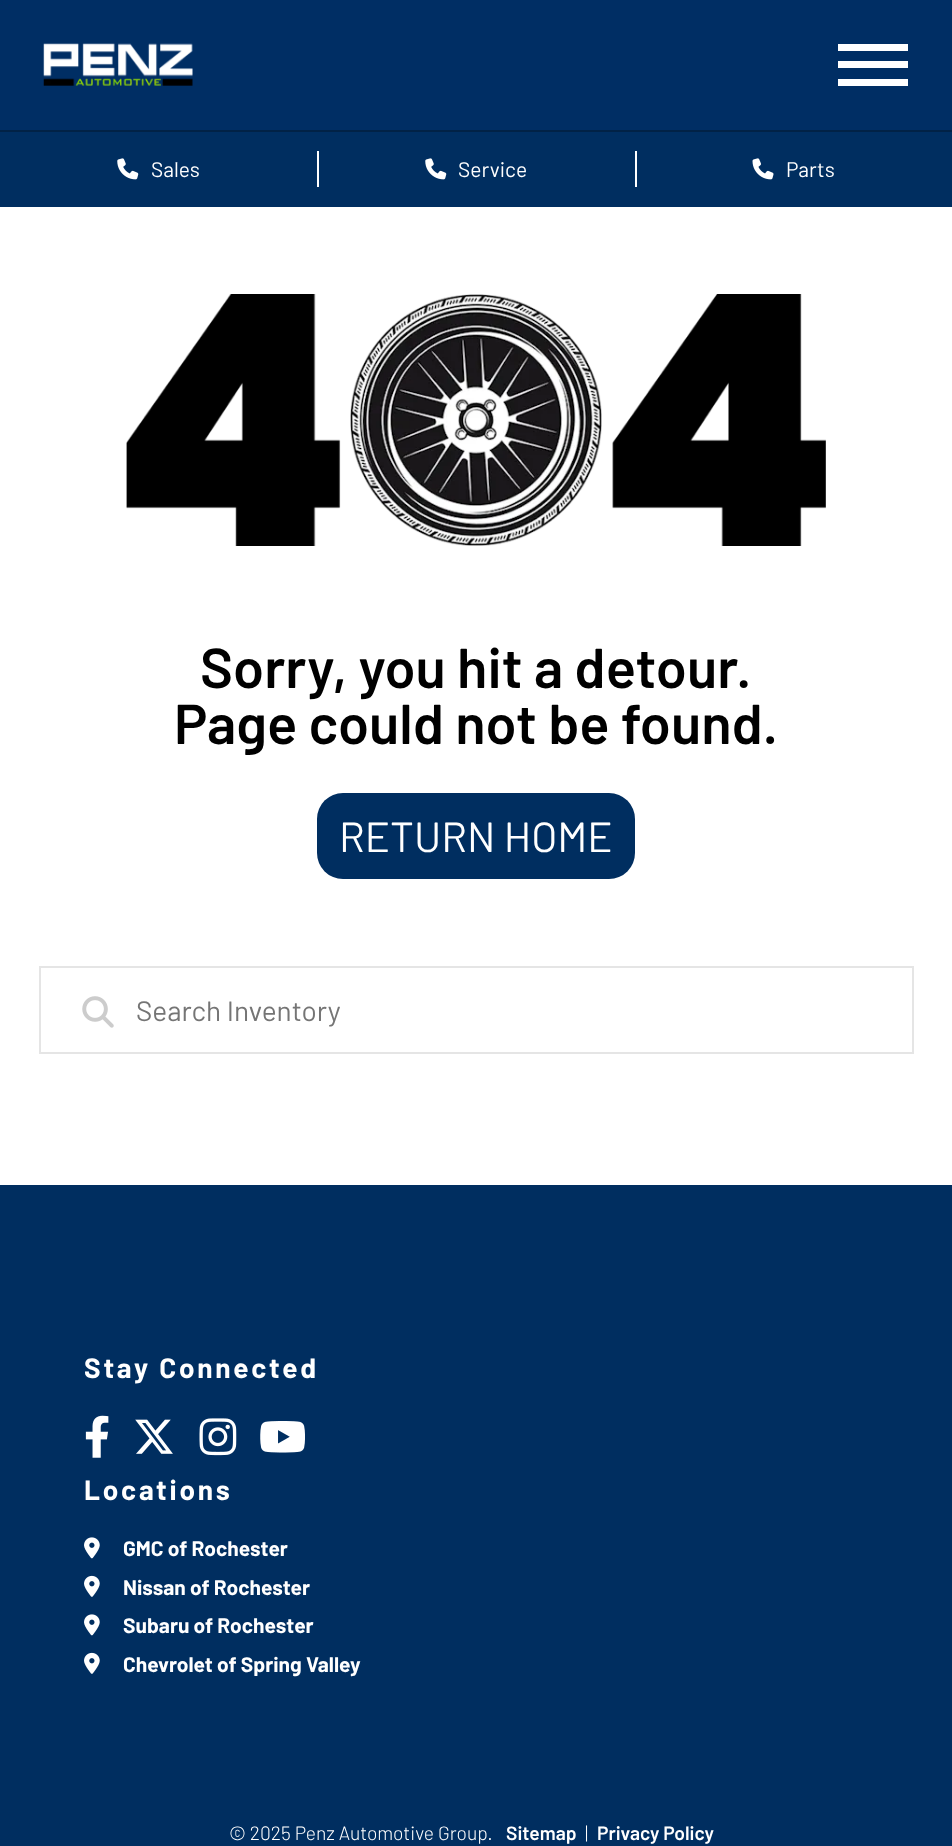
<svg xmlns="http://www.w3.org/2000/svg" width="952" height="1846" viewBox="0 0 952 1846">
  <rect width="100%" height="100%" fill="#ffffff"/>
  <rect x="0" y="0" width="952" height="130" fill="#002e64"/>
  <rect x="0" y="130" width="952" height="2" fill="#012246"/>
  <image x="43" y="43" width="150" height="43" href="img1.png"/>
  <rect x="838" y="44" width="70" height="7" fill="#ffffff"/>
  <rect x="838" y="61" width="70" height="7" fill="#ffffff"/>
  <rect x="838" y="79" width="70" height="7" fill="#ffffff"/>
  <rect x="0" y="132" width="952" height="75" fill="#002e60"/>
  <image x="117" y="158" width="22" height="22" href="img2.png"/>
  <text x="151" y="177" font-family="Barlow" font-size="21" fill="#ffffff">Sales</text>
  <rect x="317" y="151" width="2" height="36" fill="#ffffff"/>
  <image x="425" y="158" width="22" height="22" href="img2.png"/>
  <text x="458" y="177" font-family="Barlow" font-size="21" fill="#ffffff">Service</text>
  <rect x="635" y="151" width="2" height="36" fill="#ffffff"/>
  <image x="752" y="158" width="22" height="22" href="img3.png"/>
  <text x="786" y="177" font-family="Barlow" font-size="21" fill="#ffffff">Parts</text>
  <image x="126" y="294" width="700" height="252" href="img4.png"/>
  <text x="200" y="688" font-family="Barlow" font-size="56" font-weight="600" fill="#000000">Sorry, you hit a detour.</text>
  <text x="174" y="744" font-family="Barlow" font-size="56" font-weight="600" fill="#000000">Page could not be found.</text>
  <rect x="317" y="793" width="318" height="86" rx="26" fill="#002e60"/>
  <text x="339" y="852" font-family="Barlow" font-size="42" fill="#ffffff">RETURN HOME</text>
  <rect x="40" y="967" width="873" height="86" fill="none" stroke="#e5e5e5" stroke-width="2"/>
  <image x="82" y="996" width="32" height="32" href="img5.png"/>
  <text x="136" y="1021" font-family="Barlow" font-size="28" fill="#757575">Search Inventory</text>
  <rect x="0" y="1185" width="952" height="661" fill="#002e60"/>
  <text x="84" y="1378" font-family="Barlow" font-size="28" font-weight="bold" letter-spacing="2.75" fill="#ffffff">Stay Connected</text>
  <image x="85" y="1415" width="24" height="43" href="img6.png"/>
  <image x="135" y="1419" width="38" height="35" href="img7.png"/>
  <image x="199" y="1418" width="38" height="38" href="img8.png"/>
  <image x="260" y="1421" width="45" height="32" href="img9.png"/>
  <text x="84" y="1500" font-family="Barlow" font-size="28" font-weight="bold" letter-spacing="2.75" fill="#ffffff">Locations</text>
  <image x="84" y="1537" width="16" height="22" href="img10.png"/>
  <text x="123" y="1556" font-family="Barlow" font-size="21" font-weight="bold" fill="#ffffff">GMC of Rochester</text>
  <image x="84" y="1575" width="16" height="22" href="img11.png"/>
  <text x="123" y="1595" font-family="Barlow" font-size="21" font-weight="bold" fill="#ffffff">Nissan of Rochester</text>
  <image x="84" y="1614" width="16" height="22" href="img10.png"/>
  <text x="123" y="1633" font-family="Barlow" font-size="21" font-weight="bold" fill="#ffffff">Subaru of Rochester</text>
  <image x="84" y="1652" width="16" height="22" href="img11.png"/>
  <text x="123" y="1672" font-family="Barlow" font-size="21" font-weight="bold" fill="#ffffff">Chevrolet of Spring Valley</text>
  <text x="229" y="1840" font-family="Barlow" font-size="19.25" font-weight="300" fill="#ffffff">© 2025 Penz Automotive Group.</text>
  <text x="506" y="1840" font-family="Barlow" font-size="19.25" font-weight="600" fill="#ffffff">Sitemap</text>
  <text x="585" y="1840" font-family="Barlow" font-size="19.25" font-weight="300" fill="#ffffff">|</text>
  <text x="597" y="1840" font-family="Barlow" font-size="19.25" font-weight="600" fill="#ffffff">Privacy Policy</text>
</svg>
